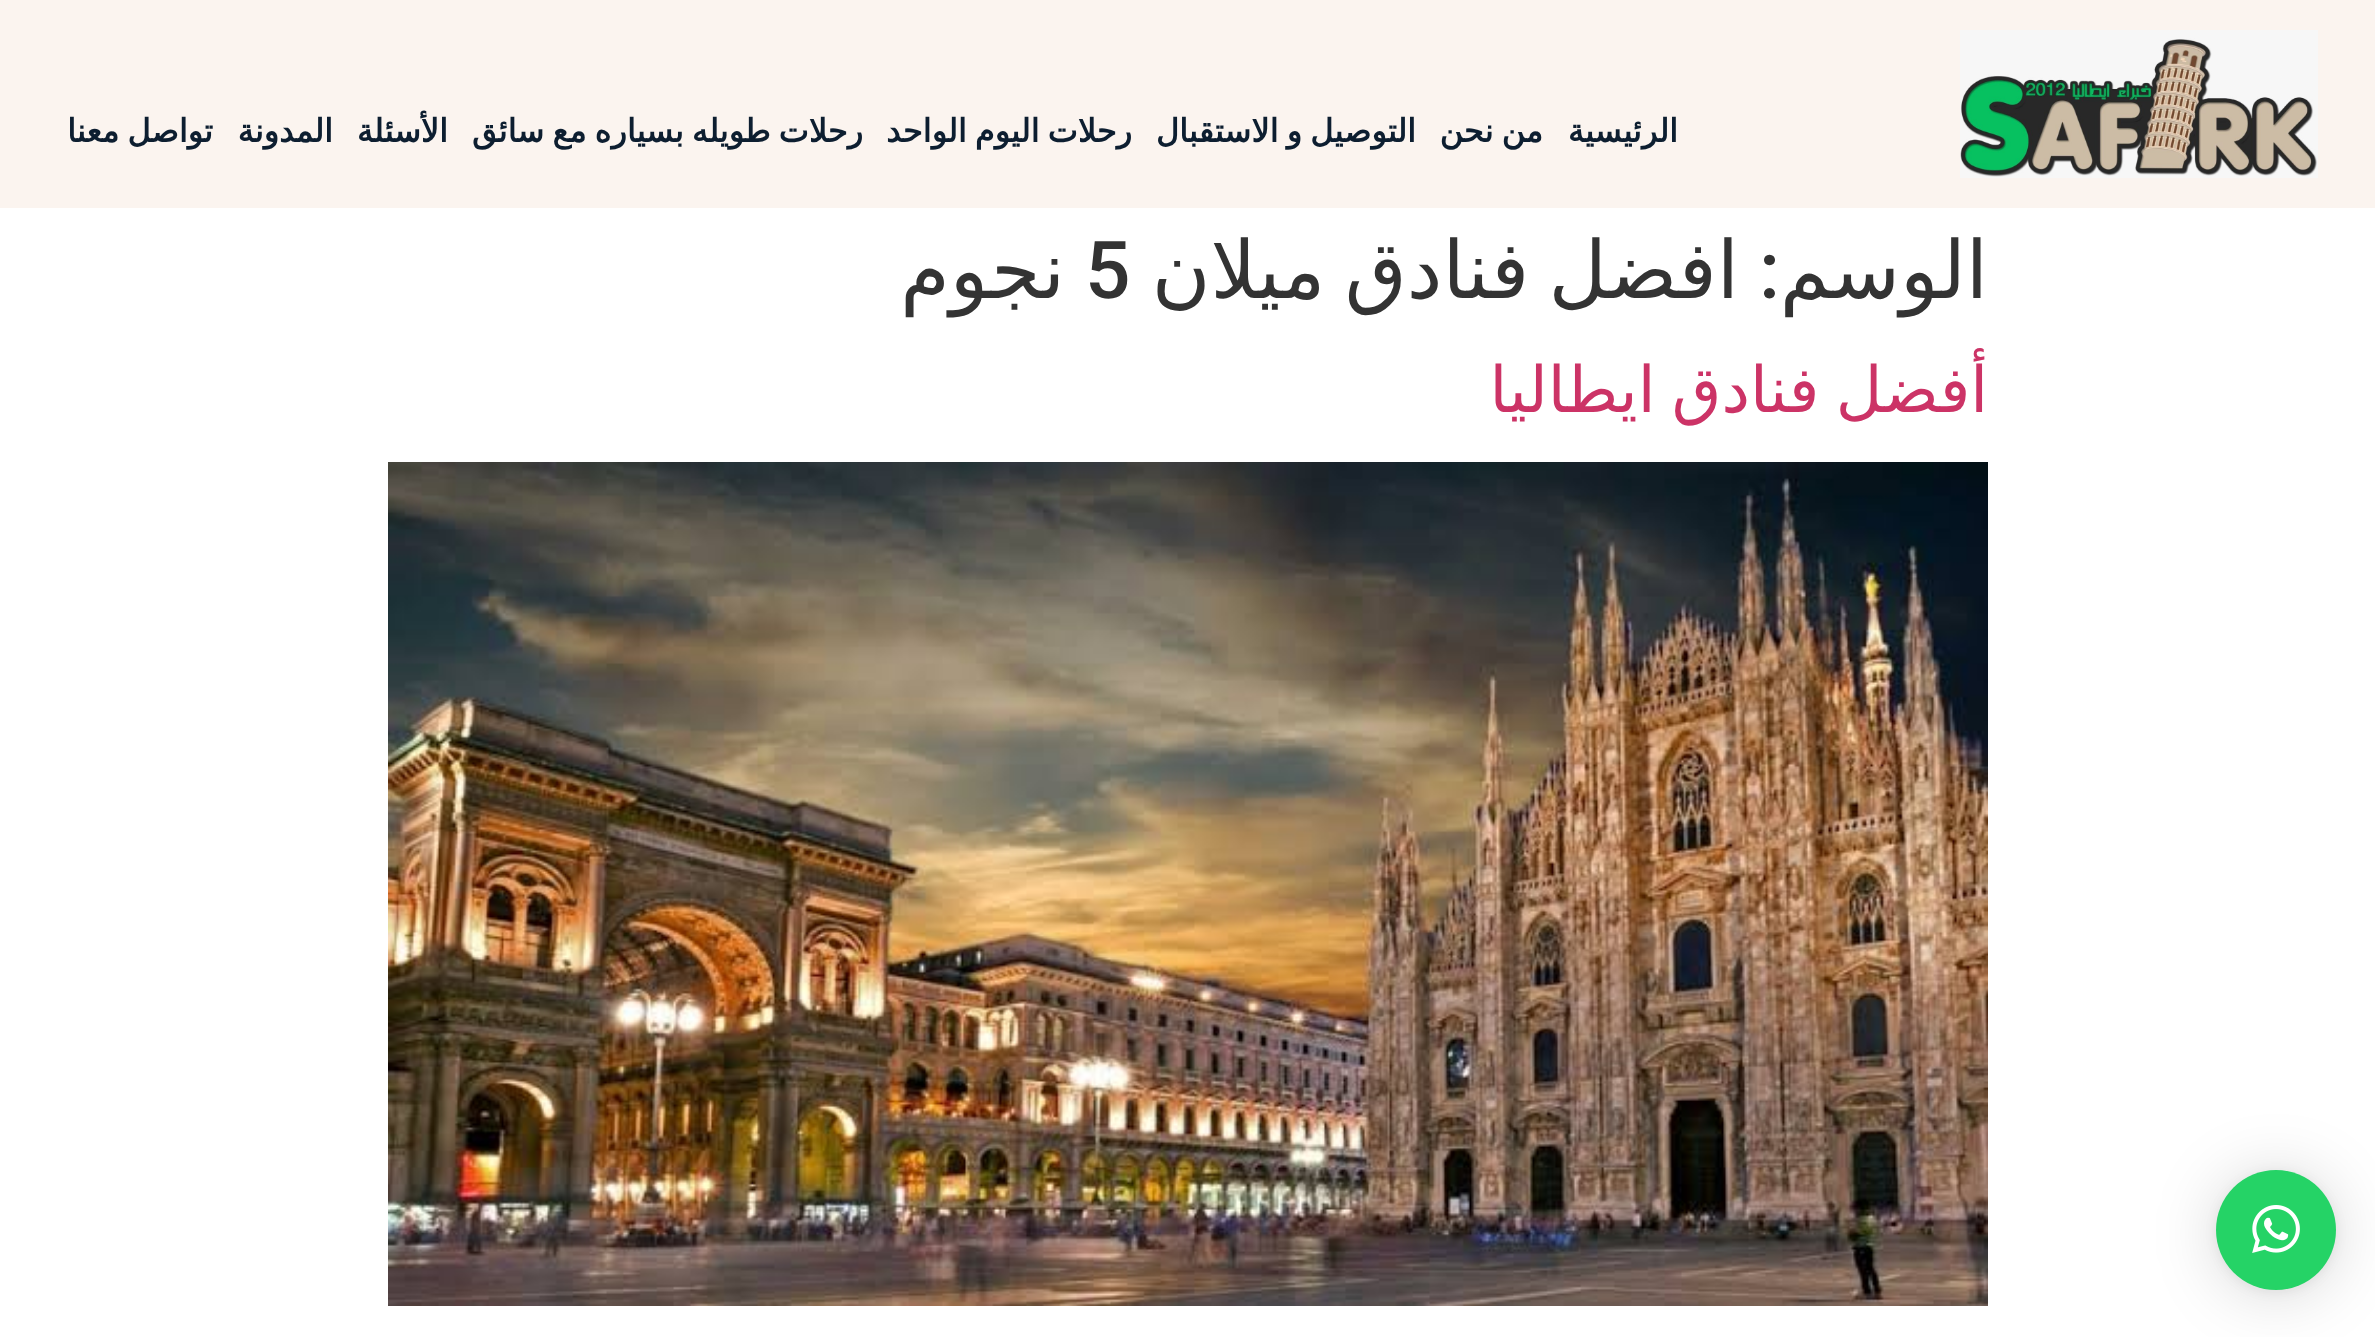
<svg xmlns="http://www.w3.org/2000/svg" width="2375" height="1337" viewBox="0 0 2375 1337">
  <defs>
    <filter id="blur1" x="-50%" y="-200%" width="200%" height="500%"><feGaussianBlur stdDeviation="32"/></filter>
    <filter id="blur2" x="-50%" y="-200%" width="200%" height="500%"><feGaussianBlur stdDeviation="6"/></filter>
  </defs>
  <rect width="100%" height="100%" fill="#ffffff"/>
  <rect x="0" y="0" width="2375" height="208" fill="#fbf4ef"/>
  <image x="1960" y="30" width="358" height="148" href="img1.png"/>
  <text x="1678" y="142" font-family="DejaVu Sans" font-size="32" font-weight="bold" direction="rtl" fill="#0d1e30">الرئيسية</text>
  <text x="1543" y="142" word-spacing="-2" font-family="DejaVu Sans" font-size="32" font-weight="bold" direction="rtl" fill="#0d1e30">من نحن</text>
  <text x="1416" y="142" word-spacing="-2" font-family="DejaVu Sans" font-size="32" font-weight="bold" direction="rtl" fill="#0d1e30">التوصيل و الاستقبال</text>
  <text x="1132" y="142" word-spacing="-2" font-family="DejaVu Sans" font-size="32" font-weight="bold" direction="rtl" fill="#0d1e30">رحلات اليوم الواحد</text>
  <text x="863" y="142" word-spacing="-2" font-family="DejaVu Sans" font-size="32" font-weight="bold" direction="rtl" fill="#0d1e30">رحلات طويله بسياره مع سائق</text>
  <text x="448" y="142" font-family="DejaVu Sans" font-size="32" font-weight="bold" direction="rtl" fill="#0d1e30">الأسئلة</text>
  <text x="333" y="142" font-family="DejaVu Sans" font-size="32" font-weight="bold" direction="rtl" fill="#0d1e30">المدونة</text>
  <text x="213" y="142" word-spacing="-2" font-family="DejaVu Sans" font-size="32" font-weight="bold" direction="rtl" fill="#0d1e30">تواصل معنا</text>
  <text x="1988" y="298" font-family="DejaVu Sans" font-size="80" direction="rtl" fill="#333333">الوسم</text>
  <text x="1780" y="298" font-family="Roboto" font-size="80" font-weight="500" direction="rtl" fill="#333333">:</text>
  <text x="1739" y="298" word-spacing="-6" font-family="DejaVu Sans" font-size="80" direction="rtl" fill="#333333">افضل فنادق ميلان</text>
  <text x="1085" y="298" font-family="Roboto" font-size="80" font-weight="500" fill="#333333">5</text>
  <text x="1065" y="298" font-family="DejaVu Sans" font-size="80" direction="rtl" fill="#333333">نجوم</text>
  <text x="1988" y="412" word-spacing="-4" font-family="DejaVu Sans" font-size="64" direction="rtl" fill="#cc3366">أفضل فنادق ايطاليا</text>
  <image x="388" y="462" width="1600" height="844" href="img2.png"/>
  <rect x="2216" y="1174" width="120" height="120" rx="60" fill="#000000" fill-opacity="0.16" filter="url(#blur1)"/>
  <rect x="2216" y="1172" width="120" height="120" rx="60" fill="#000000" fill-opacity="0.06" filter="url(#blur2)"/>
  <circle cx="2276" cy="1230" r="60" fill="#25d366"/>
  <image x="2252" y="1205" width="48" height="48" href="img3.png"/>
</svg>
